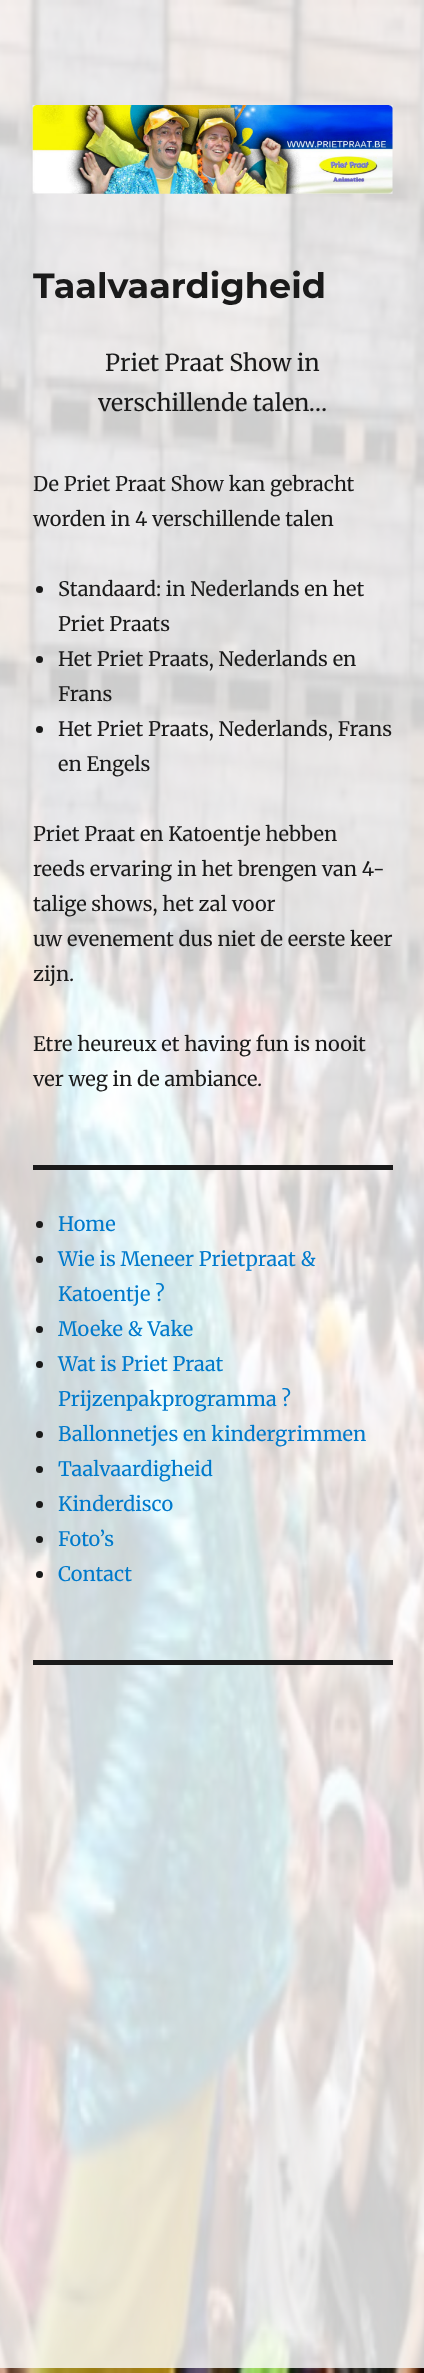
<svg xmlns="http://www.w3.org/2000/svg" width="424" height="2373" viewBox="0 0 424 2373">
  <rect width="100%" height="100%" fill="#ffffff"/>
  <image x="0" y="0" width="424" height="2373" href="img1.png"/>
  <image x="32" y="105" width="361" height="89" href="img2.png"/>
  <text x="33" y="298" font-family="Montserrat" font-size="35" font-weight="bold" fill="#1a1a1a">Taalvaardigheid</text>
  <text x="105" y="371" font-family="Merriweather" font-size="23.25" fill="#1a1a1a">Priet Praat Show in</text>
  <text x="98" y="411" font-family="Merriweather" font-size="23.25" fill="#1a1a1a">verschillende talen…</text>
  <text x="33" y="491" font-family="Merriweather" font-size="20" fill="#1a1a1a">De Priet Praat Show kan gebracht</text>
  <text x="33" y="526" font-family="Merriweather" font-size="20" fill="#1a1a1a">worden in 4 verschillende talen</text>
  <circle cx="39.5" cy="589.5" r="3.5" fill="#1a1a1a"/>
  <text x="58" y="596" font-family="Merriweather" font-size="20" fill="#1a1a1a">Standaard: in Nederlands en het</text>
  <text x="58" y="631" font-family="Merriweather" font-size="20" fill="#1a1a1a">Priet Praats</text>
  <circle cx="39.5" cy="659.5" r="3.5" fill="#1a1a1a"/>
  <text x="58" y="666" font-family="Merriweather" font-size="20" fill="#1a1a1a">Het Priet Praats, Nederlands en</text>
  <text x="58" y="701" font-family="Merriweather" font-size="20" fill="#1a1a1a">Frans</text>
  <circle cx="39.5" cy="729.5" r="3.5" fill="#1a1a1a"/>
  <text x="58" y="736" font-family="Merriweather" font-size="20" fill="#1a1a1a">Het Priet Praats, Nederlands, Frans</text>
  <text x="58" y="771" font-family="Merriweather" font-size="20" fill="#1a1a1a">en Engels</text>
  <text x="33" y="841" font-family="Merriweather" font-size="20" fill="#1a1a1a">Priet Praat en Katoentje hebben</text>
  <text x="33" y="876" font-family="Merriweather" font-size="20" fill="#1a1a1a">reeds ervaring in het brengen van 4-</text>
  <text x="33" y="911" font-family="Merriweather" font-size="20" fill="#1a1a1a">talige shows, het zal voor</text>
  <text x="33" y="946" font-family="Merriweather" font-size="20" fill="#1a1a1a">uw evenement dus niet de eerste keer</text>
  <text x="33" y="981" font-family="Merriweather" font-size="20" fill="#1a1a1a">zijn.</text>
  <text x="33" y="1051" font-family="Merriweather" font-size="20" fill="#1a1a1a">Etre heureux et having fun is nooit</text>
  <text x="33" y="1086" font-family="Merriweather" font-size="20" fill="#1a1a1a">ver weg in de ambiance.</text>
  <rect x="33" y="1165" width="360" height="5" fill="#1a1a1a"/>
  <circle cx="39.5" cy="1224.5" r="3.5" fill="#1a1a1a"/>
  <text x="58" y="1231" font-family="Merriweather" font-size="20" fill="#007acc">Home</text>
  <circle cx="39.5" cy="1259.5" r="3.5" fill="#1a1a1a"/>
  <text x="58" y="1266" font-family="Merriweather" font-size="20" fill="#007acc">Wie is Meneer Prietpraat &amp;</text>
  <text x="58" y="1301" font-family="Merriweather" font-size="20" fill="#007acc">Katoentje ?</text>
  <circle cx="39.5" cy="1329.5" r="3.5" fill="#1a1a1a"/>
  <text x="58" y="1336" font-family="Merriweather" font-size="20" fill="#007acc">Moeke &amp; Vake</text>
  <circle cx="39.5" cy="1364.5" r="3.5" fill="#1a1a1a"/>
  <text x="58" y="1371" font-family="Merriweather" font-size="20" fill="#007acc">Wat is Priet Praat</text>
  <text x="58" y="1406" font-family="Merriweather" font-size="20" fill="#007acc">Prijzenpakprogramma ?</text>
  <circle cx="39.5" cy="1434.5" r="3.5" fill="#1a1a1a"/>
  <text x="58" y="1441" font-family="Merriweather" font-size="20" fill="#007acc">Ballonnetjes en kindergrimmen</text>
  <circle cx="39.5" cy="1469.5" r="3.5" fill="#1a1a1a"/>
  <text x="58" y="1476" font-family="Merriweather" font-size="20" fill="#007acc">Taalvaardigheid</text>
  <circle cx="39.5" cy="1504.5" r="3.5" fill="#1a1a1a"/>
  <text x="58" y="1511" font-family="Merriweather" font-size="20" fill="#007acc">Kinderdisco</text>
  <circle cx="39.5" cy="1539.5" r="3.5" fill="#1a1a1a"/>
  <text x="58" y="1546" font-family="Merriweather" font-size="20" fill="#007acc">Foto’s</text>
  <circle cx="39.5" cy="1574.5" r="3.5" fill="#1a1a1a"/>
  <text x="58" y="1581" font-family="Merriweather" font-size="20" fill="#007acc">Contact</text>
  <rect x="33" y="1660" width="360" height="5" fill="#1a1a1a"/>
</svg>
